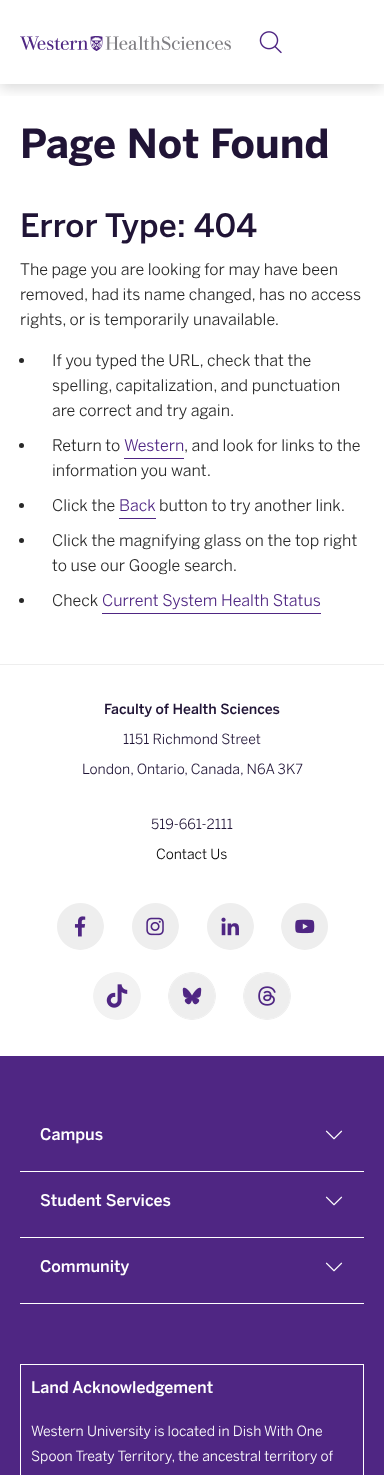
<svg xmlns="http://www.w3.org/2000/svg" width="384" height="1475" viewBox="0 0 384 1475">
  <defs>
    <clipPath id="clip1"><rect x="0" y="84" width="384" height="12"/></clipPath>
    <filter id="blur1" x="-50%" y="-200%" width="200%" height="500%"><feGaussianBlur stdDeviation="7"/></filter>
  </defs>
  <rect width="100%" height="100%" fill="#ffffff"/>
  <g clip-path="url(#clip1)">
    <rect x="0" y="4" width="384" height="84" fill="#000000" fill-opacity="0.15" filter="url(#blur1)"/>
  </g>
  <image x="20" y="36" width="211" height="15" href="img1.png"/>
  <image x="259" y="31" width="23" height="23" href="img2.png"/>
  <text x="20" y="158" font-family="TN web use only" font-size="40" font-weight="bold" fill="#201436">Page Not Found</text>
  <text x="20" y="237" font-family="TN web use only" font-size="32" font-weight="500" fill="#201436">Error Type: 404</text>
  <text x="20" y="275" font-family="TN web use only" font-size="16" font-weight="300" fill="#292929">The page you are looking for may have been</text>
  <text x="20" y="300" font-family="TN web use only" font-size="16" font-weight="300" fill="#292929">removed, had its name changed, has no access</text>
  <text x="20" y="325" font-family="TN web use only" font-size="16" font-weight="300" fill="#292929">rights, or is temporarily unavailable.</text>
  <circle cx="21.5" cy="360.5" r="2.5" fill="#292929"/>
  <text x="52" y="366" font-family="TN web use only" font-size="16" font-weight="300" fill="#292929">If you typed the URL, check that the</text>
  <text x="52" y="391" font-family="TN web use only" font-size="16" font-weight="300" fill="#292929">spelling, capitalization, and punctuation</text>
  <text x="52" y="416" font-family="TN web use only" font-size="16" font-weight="300" fill="#292929">are correct and try again.</text>
  <circle cx="21.5" cy="445.5" r="2.5" fill="#292929"/>
  <text x="52" y="451" font-family="TN web use only" font-size="16" font-weight="300" fill="#292929">Return to</text>
  <text x="124" y="451" font-family="TN web use only" font-size="16" font-weight="300" fill="#4f2683">Western</text>
  <rect x="124" y="458" width="60" height="1" fill="#4f2683"/>
  <text x="184" y="451" font-family="TN web use only" font-size="16" font-weight="300" fill="#292929">, and look for links to the</text>
  <text x="52" y="476" font-family="TN web use only" font-size="16" font-weight="300" fill="#292929">information you want.</text>
  <circle cx="21.5" cy="505.5" r="2.5" fill="#292929"/>
  <text x="52" y="511" font-family="TN web use only" font-size="16" font-weight="300" fill="#292929">Click the</text>
  <text x="119" y="511" font-family="TN web use only" font-size="16" font-weight="300" fill="#4f2683">Back</text>
  <rect x="119" y="518" width="37" height="1" fill="#4f2683"/>
  <text x="159" y="511" font-family="TN web use only" font-size="16" font-weight="300" fill="#292929">button to try another link.</text>
  <circle cx="21.5" cy="540.5" r="2.5" fill="#292929"/>
  <text x="52" y="546" font-family="TN web use only" font-size="16" font-weight="300" fill="#292929">Click the magnifying glass on the top right</text>
  <text x="52" y="571" font-family="TN web use only" font-size="16" font-weight="300" fill="#292929">to use our Google search.</text>
  <circle cx="21.5" cy="600.5" r="2.5" fill="#292929"/>
  <text x="52" y="606" font-family="TN web use only" font-size="16" font-weight="300" fill="#292929">Check</text>
  <text x="102" y="606" font-family="TN web use only" font-size="16" font-weight="300" fill="#4f2683">Current System Health Status</text>
  <rect x="102" y="613" width="219" height="1" fill="#4f2683"/>
  <rect x="0" y="664" width="384" height="1" fill="#eeeeee"/>
  <text x="104" y="714" font-family="TN web use only" font-size="14" font-weight="500" fill="#201436">Faculty of Health Sciences</text>
  <text x="123" y="744" font-family="TN web use only" font-size="14" font-weight="300" fill="#201436">1151 Richmond Street</text>
  <text x="82" y="774" font-family="TN web use only" font-size="14" font-weight="300" fill="#201436">London, Ontario, Canada, N6A 3K7</text>
  <text x="151" y="829" font-family="TN web use only" font-size="14" font-weight="300" fill="#201436">519-661-2111</text>
  <text x="156" y="859" font-family="TN web use only" font-size="14" font-weight="300" fill="#000000">Contact Us</text>
  <image x="57" y="903" width="47" height="47" href="img3.png"/>
  <image x="132" y="903" width="47" height="47" href="img4.png"/>
  <image x="207" y="903" width="47" height="47" href="img5.png"/>
  <image x="281" y="903" width="47" height="47" href="img6.png"/>
  <image x="93" y="972" width="48" height="48" href="img7.png"/>
  <image x="168" y="972" width="48" height="48" href="img8.png"/>
  <image x="243" y="972" width="48" height="48" href="img9.png"/>
  <rect x="0" y="1056" width="384" height="419" fill="#4f2683"/>
  <rect x="20" y="1171" width="344" height="1" fill="#ffffff"/>
  <text x="40" y="1140" font-family="TN web use only" font-size="16" font-weight="500" fill="#ffffff">Campus</text>
  <image x="325" y="1130" width="18" height="10" href="img10.png"/>
  <rect x="20" y="1237" width="344" height="1" fill="#ffffff"/>
  <text x="40" y="1206" font-family="TN web use only" font-size="16" font-weight="500" fill="#ffffff">Student Services</text>
  <image x="325" y="1196" width="18" height="10" href="img10.png"/>
  <rect x="20" y="1303" width="344" height="1" fill="#ffffff"/>
  <text x="40" y="1272" font-family="TN web use only" font-size="16" font-weight="500" fill="#ffffff">Community</text>
  <image x="325" y="1262" width="18" height="10" href="img10.png"/>
  <rect x="20.5" y="1364.5" width="343" height="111" fill="none" stroke="#ffffff"/>
  <text x="31" y="1393" font-family="TN web use only" font-size="16" font-weight="500" fill="#ffffff">Land Acknowledgement</text>
  <text x="31" y="1436" font-family="TN web use only" font-size="14" font-weight="300" fill="#ffffff">Western University is located in Dish With One</text>
  <text x="31" y="1461" font-family="TN web use only" font-size="14" font-weight="300" fill="#ffffff">Spoon Treaty Territory, the ancestral territory of</text>
</svg>
